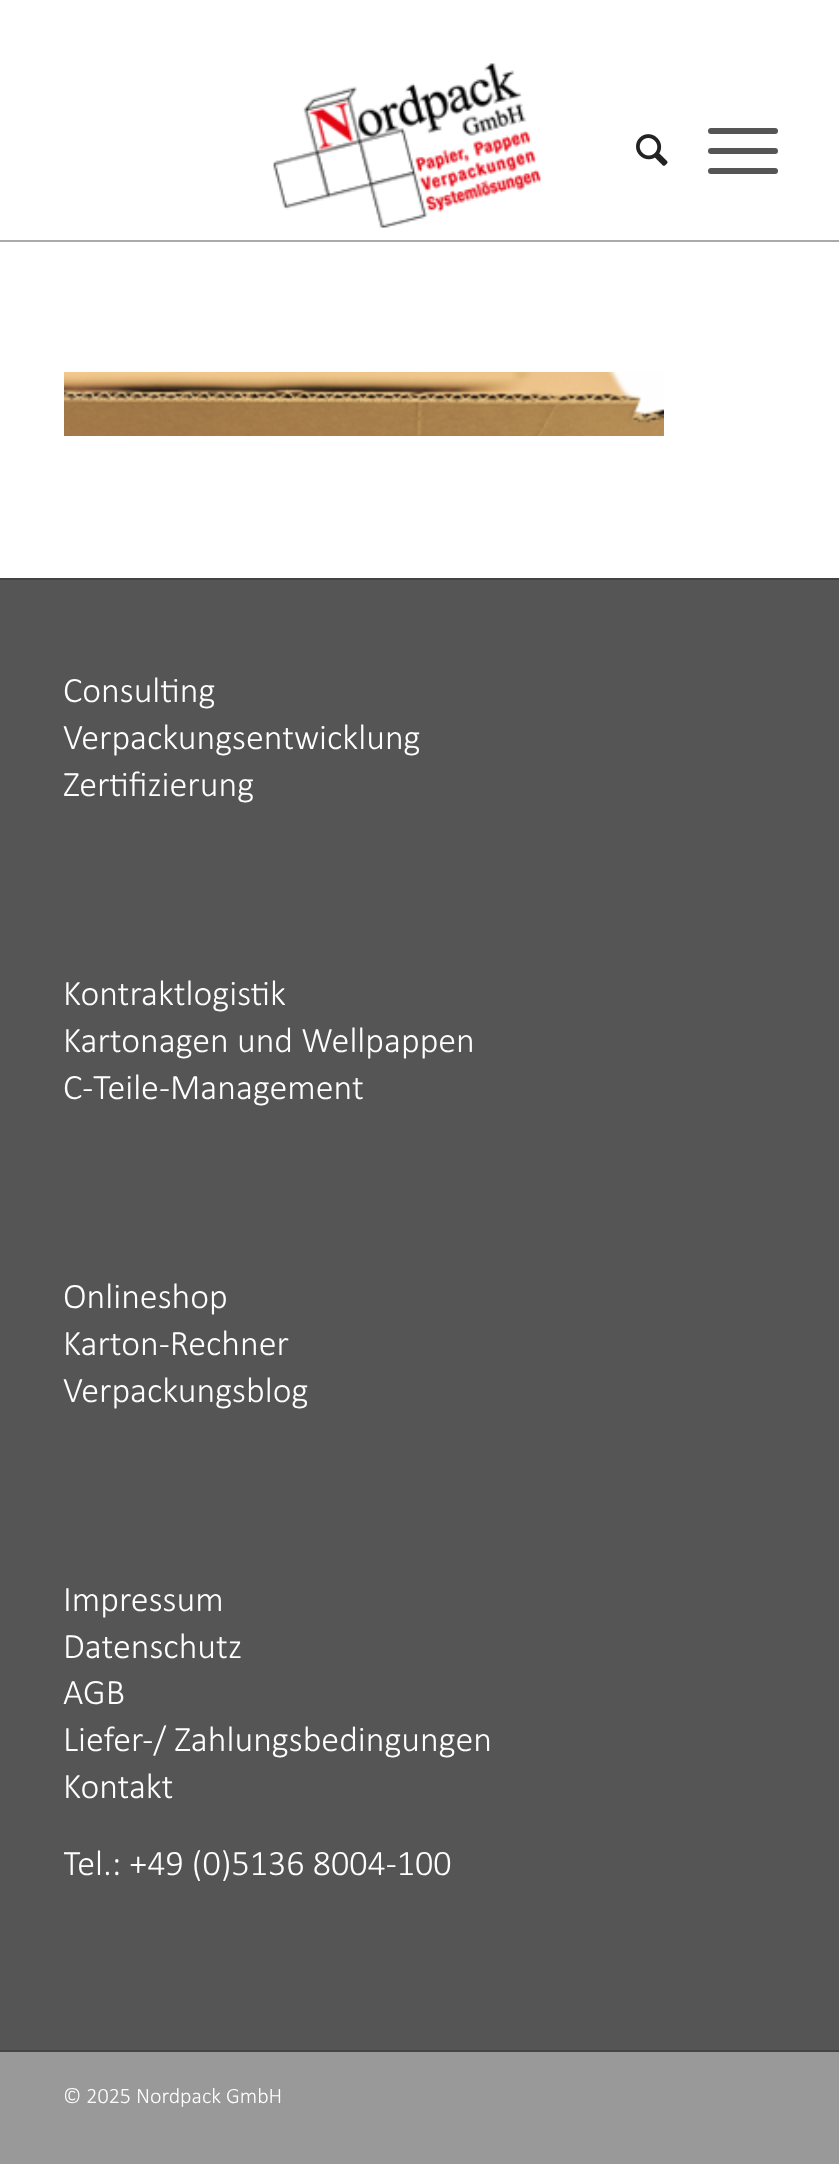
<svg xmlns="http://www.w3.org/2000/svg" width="839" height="2164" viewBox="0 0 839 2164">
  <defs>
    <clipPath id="clip1"><rect x="64" y="1548" width="428" height="372"/></clipPath>
  </defs>
  <rect width="100%" height="100%" fill="#999999"/>
  <rect x="0" y="0" width="839" height="240" fill="#ffffff"/>
  <rect x="0" y="240" width="839" height="2" fill="#aaaaaa"/>
  <image x="273" y="63" width="268" height="165" href="img1.png"/>
  <image x="636" y="134" width="32" height="32" href="img2.png"/>
  <rect x="708" y="148" width="70" height="6" rx="3" fill="#555555"/>
  <rect x="708" y="128" width="70" height="6" rx="3" fill="#555555"/>
  <rect x="708" y="168" width="70" height="6" rx="3" fill="#555555"/>
  <rect x="0" y="242" width="839" height="336" fill="#ffffff"/>
  <image x="64" y="372" width="600" height="64" href="img3.png"/>
  <rect x="0" y="580" width="839" height="1470" fill="#555555"/>
  <rect x="0" y="578" width="839" height="2" fill="#444444"/>
  <text x="63" y="702" font-family="Calibri" font-size="36" font-weight="300" fill="#ffffff">Consulting</text>
  <text x="63" y="749" font-family="Calibri" font-size="36" font-weight="300" fill="#ffffff">Verpackungsentwicklung</text>
  <text x="63" y="796" font-family="Calibri" font-size="36" font-weight="300" fill="#ffffff">Zertifizierung</text>
  <text x="63" y="1005" font-family="Calibri" font-size="36" font-weight="300" fill="#ffffff">Kontraktlogistik</text>
  <text x="63" y="1052" font-family="Calibri" font-size="36" font-weight="300" fill="#ffffff">Kartonagen und Wellpappen</text>
  <text x="63" y="1099" font-family="Calibri" font-size="36" font-weight="300" fill="#ffffff">C-Teile-Management</text>
  <text x="63" y="1308" font-family="Calibri" font-size="36" font-weight="300" fill="#ffffff">Onlineshop</text>
  <text x="63" y="1355" font-family="Calibri" font-size="36" font-weight="300" fill="#ffffff">Karton-Rechner</text>
  <text x="63" y="1402" font-family="Calibri" font-size="36" font-weight="300" fill="#ffffff">Verpackungsblog</text>
  <text x="63" y="1611" font-family="Calibri" font-size="36" font-weight="300" fill="#ffffff">Impressum</text>
  <text x="63" y="1658" font-family="Calibri" font-size="36" font-weight="300" fill="#ffffff">Datenschutz</text>
  <text x="63" y="1704" font-family="Calibri" font-size="36" font-weight="300" fill="#ffffff">AGB</text>
  <text x="63" y="1751" font-family="Calibri" font-size="36" font-weight="300" fill="#ffffff">Liefer-/ Zahlungsbedingungen</text>
  <text x="63" y="1798" font-family="Calibri" font-size="36" font-weight="300" fill="#ffffff">Kontakt</text>
  <g clip-path="url(#clip1)">
    <text x="63" y="1875" font-family="Calibri" font-size="36" font-weight="300" fill="#ffffff">Tel.: +49 (0)5136 8004-100</text>
  </g>
  <rect x="0" y="2050" width="839" height="2" fill="#444444"/>
  <text x="63" y="2103" font-family="Calibri" font-size="22" font-weight="300" fill="#ffffff">© 2025 Nordpack GmbH</text>
</svg>
